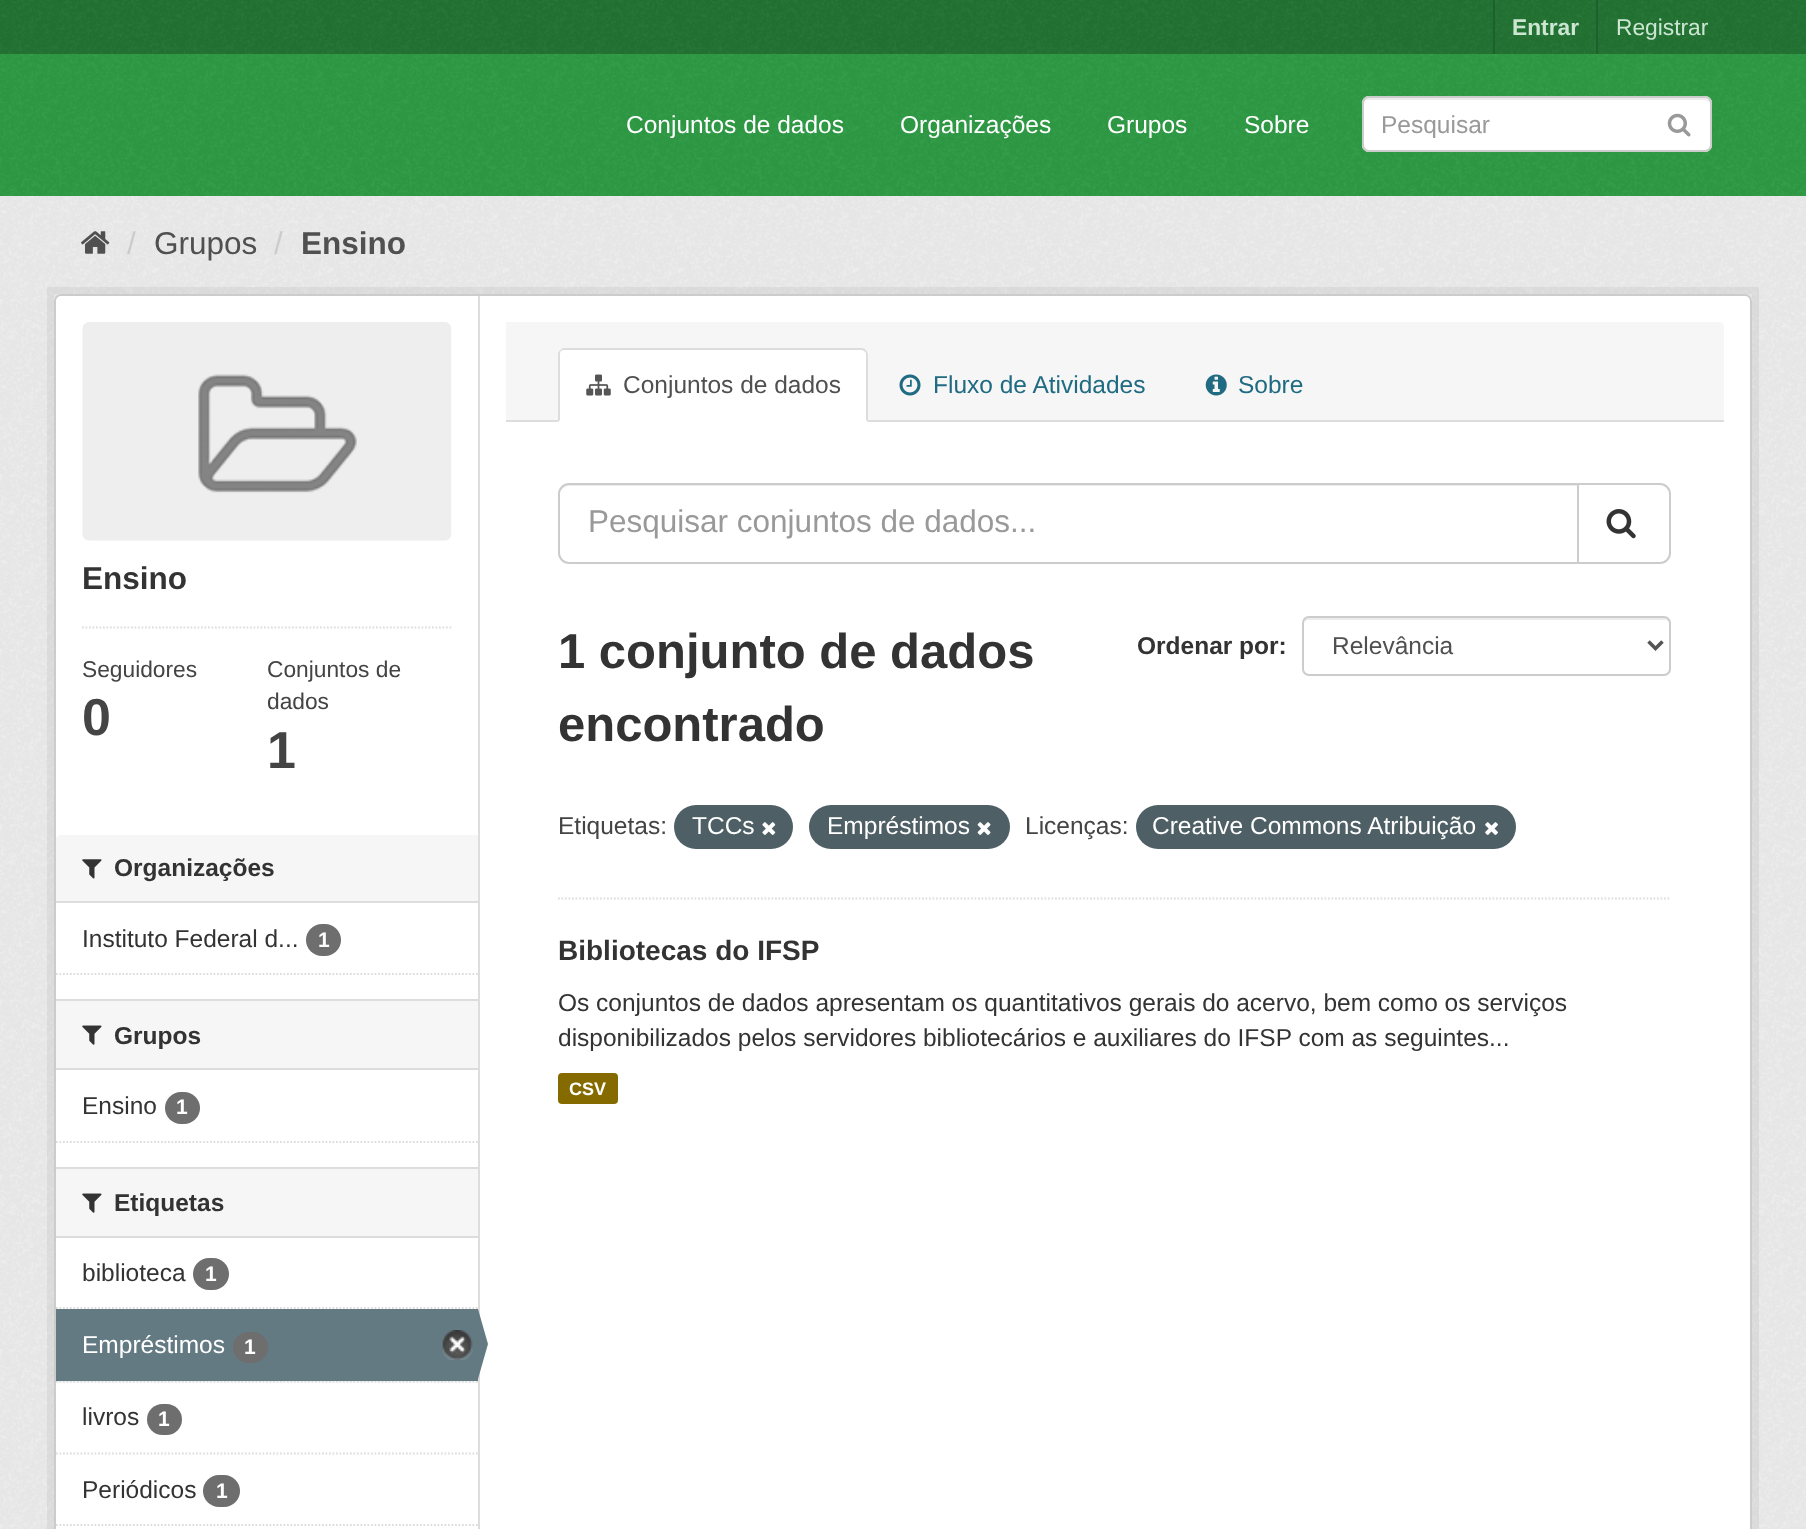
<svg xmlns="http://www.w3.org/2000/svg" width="1806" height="1529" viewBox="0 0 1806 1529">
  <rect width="100%" height="100%" fill="#237434"/>
  <image x="0" y="0" width="1806" height="54" href="img1.png"/>
  <rect x="1493" y="0" width="2" height="54" fill="#1d602b"/>
  <text x="1512" y="35" font-family="Liberation Sans" font-size="22.75" font-weight="bold" fill="#cbe6d1">Entrar</text>
  <rect x="1596" y="0" width="2" height="54" fill="#1d602b"/>
  <text x="1616" y="35" font-family="Liberation Sans" font-size="22.75" fill="#cbe6d1">Registrar</text>
  <rect x="0" y="54" width="1806" height="142" fill="#2f9b45"/>
  <image x="0" y="54" width="1806" height="142" href="img2.png"/>
  <text x="626" y="133" font-family="Liberation Sans" font-size="24.5" fill="#ffffff">Conjuntos de dados</text>
  <text x="900" y="133" font-family="Liberation Sans" font-size="24.5" fill="#ffffff">Organizações</text>
  <text x="1107" y="133" font-family="Liberation Sans" font-size="24.5" fill="#ffffff">Grupos</text>
  <text x="1244" y="133" font-family="Liberation Sans" font-size="24.5" fill="#ffffff">Sobre</text>
  <rect x="1362" y="96" width="350" height="56" rx="7" fill="#ffffff"/>
  <path d="M1368 100H1704C1707 100 1710 102 1710 105C1710 102 1709 98 1705 98H1368C1364 98 1363 102 1363 105C1363 102 1366 100 1368 100Z" fill="#ececec"/>
  <rect x="1363" y="97" width="348" height="54" rx="6" fill="none" stroke="#cccccc" stroke-width="2"/>
  <text x="1381" y="133" font-family="Liberation Sans" font-size="24.5" fill="#999999">Pesquisar</text>
  <image x="1667" y="113" width="24" height="24" href="img3.png"/>
  <rect x="0" y="196" width="1806" height="1333" fill="#eeeeee"/>
  <image x="0" y="196" width="1806" height="1333" href="img4.png"/>
  <image x="81" y="231" width="29" height="23" href="img5.png"/>
  <text x="127" y="254" font-family="Liberation Sans" font-size="31.5" fill="#cccccc">/</text>
  <text x="154" y="254" font-family="Liberation Sans" font-size="31.5" fill="#505050">Grupos</text>
  <text x="274" y="254" font-family="Liberation Sans" font-size="31.5" fill="#cccccc">/</text>
  <text x="301" y="254" font-family="Liberation Sans" font-size="31.5" font-weight="bold" fill="#505050">Ensino</text>
  <rect x="50.5" y="290.5" width="1705" height="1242" fill="none" stroke="#000000" stroke-opacity="0.05" stroke-width="7"/>
  <rect x="55" y="295" width="1696" height="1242" rx="6" fill="#ffffff" stroke="#cccccc" stroke-width="2"/>
  <image x="82" y="322" width="370" height="219" href="img6.png"/>
  <text x="82" y="589" font-family="Liberation Sans" font-size="31.5" font-weight="bold" fill="#333333">Ensino</text>
  <path d="M82 627.5H451.5" fill="none" stroke="#dddddd" stroke-width="1.8" stroke-dasharray="1.75 1.75"/>
  <text x="82" y="677" font-family="Liberation Sans" font-size="22.75" fill="#444444">Seguidores</text>
  <text x="82" y="735" font-family="Liberation Sans" font-size="52" font-weight="bold" fill="#444444">0</text>
  <text x="267" y="677" font-family="Liberation Sans" font-size="22.75" fill="#444444">Conjuntos de</text>
  <text x="267" y="709" font-family="Liberation Sans" font-size="22.75" fill="#444444">dados</text>
  <text x="267" y="768" font-family="Liberation Sans" font-size="52" font-weight="bold" fill="#444444">1</text>
  <path d="M61 835H478V903H56V840C56 837 58 835 61 835Z" fill="#f6f6f6"/>
  <rect x="56" y="901" width="422" height="2" fill="#dddddd"/>
  <image x="82" y="859" width="20" height="20" href="img7.png"/>
  <text x="114" y="876" font-family="Liberation Sans" font-size="24.5" font-weight="bold" fill="#333333">Organizações</text>
  <text x="82" y="947" font-family="Liberation Sans" font-size="24.5" fill="#333333">Instituto Federal d...</text>
  <rect x="306" y="924" width="35" height="32" rx="16" fill="#6e6e6e"/>
  <text x="318" y="947" font-family="Liberation Sans" font-size="21" font-weight="bold" fill="#ffffff">1</text>
  <path d="M56 974H478" fill="none" stroke="#dddddd" stroke-width="1.8" stroke-dasharray="1.75 1.75"/>
  <rect x="56" y="1001" width="422" height="67" fill="#f6f6f6"/>
  <rect x="56" y="999" width="422" height="2" fill="#dddddd"/>
  <rect x="56" y="1068" width="422" height="2" fill="#dddddd"/>
  <image x="82" y="1025" width="20" height="20" href="img8.png"/>
  <text x="114" y="1044" font-family="Liberation Sans" font-size="24.5" font-weight="bold" fill="#333333">Grupos</text>
  <text x="82" y="1114" font-family="Liberation Sans" font-size="24.5" fill="#333333">Ensino</text>
  <rect x="165" y="1092" width="35" height="32" rx="16" fill="#6e6e6e"/>
  <text x="176" y="1114" font-family="Liberation Sans" font-size="21" font-weight="bold" fill="#ffffff">1</text>
  <path d="M56 1142H478" fill="none" stroke="#dddddd" stroke-width="1.8" stroke-dasharray="1.75 1.75"/>
  <rect x="56" y="1169" width="422" height="67" fill="#f6f6f6"/>
  <rect x="56" y="1167" width="422" height="2" fill="#dddddd"/>
  <rect x="56" y="1236" width="422" height="2" fill="#dddddd"/>
  <image x="82" y="1193" width="20" height="20" href="img8.png"/>
  <text x="114" y="1211" font-family="Liberation Sans" font-size="24.5" font-weight="bold" fill="#333333">Etiquetas</text>
  <path d="M56 1308H478" fill="none" stroke="#dddddd" stroke-width="1.8" stroke-dasharray="1.75 1.75"/>
  <text x="82" y="1281" font-family="Liberation Sans" font-size="24.5" fill="#333333">biblioteca</text>
  <rect x="193" y="1258" width="36" height="32" rx="16" fill="#6e6e6e"/>
  <text x="205" y="1281" font-family="Liberation Sans" font-size="21" font-weight="bold" fill="#ffffff">1</text>
  <rect x="56" y="1381" width="422" height="2" fill="#f6f6f6"/>
  <path d="M56 1381.5H478" fill="none" stroke="#dddddd" stroke-width="1.8" stroke-dasharray="1.75 1.75"/>
  <rect x="56" y="1309" width="422" height="72" fill="#647a82"/>
  <text x="82" y="1353" font-family="Liberation Sans" font-size="24.5" fill="#ffffff">Empréstimos</text>
  <rect x="233" y="1332" width="35" height="31" rx="15.5" fill="#6e6e6e"/>
  <text x="244" y="1354" font-family="Liberation Sans" font-size="21" font-weight="bold" fill="#ffffff">1</text>
  <image x="442" y="1330" width="31" height="30" href="img9.png"/>
  <rect x="478" y="296" width="2" height="1233" fill="#dddddd"/>
  <path d="M478 1379V1309L488 1344Z" fill="#647a82"/>
  <path d="M56 1453.5H478" fill="none" stroke="#dddddd" stroke-width="1.8" stroke-dasharray="1.75 1.75"/>
  <text x="82" y="1425" font-family="Liberation Sans" font-size="24.5" fill="#333333">livros</text>
  <rect x="147" y="1404" width="35" height="31" rx="15.5" fill="#6e6e6e"/>
  <text x="158" y="1426" font-family="Liberation Sans" font-size="21" font-weight="bold" fill="#ffffff">1</text>
  <path d="M56 1525H478" fill="none" stroke="#dddddd" stroke-width="1.8" stroke-dasharray="1.75 1.75"/>
  <text x="82" y="1498" font-family="Liberation Sans" font-size="24.5" fill="#333333">Periódicos</text>
  <rect x="203" y="1475" width="37" height="32" rx="16" fill="#6e6e6e"/>
  <text x="216" y="1498" font-family="Liberation Sans" font-size="21" font-weight="bold" fill="#ffffff">1</text>
  <path d="M506 322H1719C1722 322 1724 324 1724 327V422H506Z" fill="#f6f6f6"/>
  <rect x="506" y="420" width="1218" height="2" fill="#dddddd"/>
  <path d="M565 348H861C865 348 868 351 868 355V422H558V355C558 351 561 348 565 348Z" fill="#ffffff"/>
  <path d="M565 350C564 350 562 350 561 351L560 350L563 348H863L866 350L865 352C864 351 863 350 861 350Z" fill="#dddddd"/>
  <path d="M868 422V355C868 353 867 351 866 350L865 352C866 352 866 354 866 355V420Z" fill="#dddddd"/>
  <path d="M558 422V353L560 350L561 351C560 352 560 354 560 355V420Z" fill="#dddddd"/>
  <image x="586" y="374" width="25" height="22" href="img10.png"/>
  <text x="623" y="393" font-family="Liberation Sans" font-size="24.5" fill="#505050">Conjuntos de dados</text>
  <image x="899" y="374" width="22" height="22" href="img11.png"/>
  <text x="933" y="393" font-family="Liberation Sans" font-size="24.5" fill="#206b82">Fluxo de Atividades</text>
  <image x="1205" y="374" width="22" height="22" href="img12.png"/>
  <text x="1238" y="393" font-family="Liberation Sans" font-size="24.5" fill="#206b82">Sobre</text>
  <path d="M558 898.5H1671" fill="none" stroke="#dddddd" stroke-width="1.8" stroke-dasharray="1.75 1.75"/>
  <path d="M569 486H1577V485H569C563 485 560 490 560 495C560 490 564 486 569 486Z" fill="#ececec"/>
  <path d="M569 484H1578V563H569C563.5 563 559 558.5 559 553V494C559 488.5 563.5 484 569 484Z" fill="none" stroke="#cccccc" stroke-width="2"/>
  <text x="588" y="532" font-family="Liberation Sans" font-size="31.5" fill="#999999">Pesquisar conjuntos de dados...</text>
  <path d="M1578 484H1660C1665.5 484 1670 488.5 1670 494V553C1670 558.5 1665.5 563 1660 563H1578Z" fill="#ffffff" stroke="#cccccc" stroke-width="2"/>
  <image x="1606" y="509" width="30" height="30" href="img13.png"/>
  <text x="558" y="668" font-family="Liberation Sans" font-size="49" font-weight="bold" fill="#333333">1 conjunto de dados</text>
  <text x="558" y="741" font-family="Liberation Sans" font-size="49" font-weight="bold" fill="#333333">encontrado</text>
  <text x="1137" y="654" font-family="Liberation Sans" font-size="24.5" font-weight="bold" fill="#333333">Ordenar por:</text>
  <path d="M1309 620H1664C1667 620 1670 622 1670 625C1670 622 1669 618 1665 618H1309C1305 618 1304 622 1304 625C1304 622 1306 620 1309 620Z" fill="#ececec"/>
  <rect x="1303" y="617" width="367" height="58" rx="6" fill="none" stroke="#cccccc" stroke-width="2"/>
  <path d="M1648.5 641.5L1655.5 648.5L1662.5 641.5" fill="none" stroke="#555555" stroke-width="3.5"/>
  <text x="1332" y="654" font-family="Liberation Sans" font-size="24.5" fill="#505050">Relevância</text>
  <text x="558" y="834" font-family="Liberation Sans" font-size="24.5" fill="#444444">Etiquetas:</text>
  <rect x="674" y="805" width="119" height="44" rx="22" fill="#4e5f65"/>
  <text x="692" y="834" font-family="Liberation Sans" font-size="24.5" fill="#ffffff">TCCs</text>
  <image x="762" y="822" width="14" height="13" href="img14.png"/>
  <rect x="809" y="805" width="201" height="44" rx="22" fill="#4e5f65"/>
  <text x="827" y="834" font-family="Liberation Sans" font-size="24.5" fill="#ffffff">Empréstimos</text>
  <image x="977" y="822" width="14" height="13" href="img15.png"/>
  <text x="1025" y="834" font-family="Liberation Sans" font-size="24.5" fill="#444444">Licenças:</text>
  <rect x="1136" y="805" width="380" height="44" rx="22" fill="#4e5f65"/>
  <text x="1152" y="834" font-family="Liberation Sans" font-size="24.5" fill="#ffffff">Creative Commons Atribuição</text>
  <image x="1485" y="822" width="13" height="13" href="img16.png"/>
  <text x="558" y="960" font-family="Liberation Sans" font-size="28" font-weight="bold" fill="#333333">Bibliotecas do IFSP</text>
  <text x="558" y="1011" font-family="Liberation Sans" font-size="24.5" fill="#333333">Os conjuntos de dados apresentam os quantitativos gerais do acervo, bem como os serviços</text>
  <text x="558" y="1046" font-family="Liberation Sans" font-size="24.5" fill="#333333">disponibilizados pelos servidores bibliotecários e auxiliares do IFSP com as seguintes...</text>
  <rect x="558" y="1073" width="60" height="31" rx="4" fill="#856a00"/>
  <text x="569" y="1095" font-family="Liberation Sans" font-size="18" font-weight="bold" fill="#ffffff">CSV</text>
</svg>
